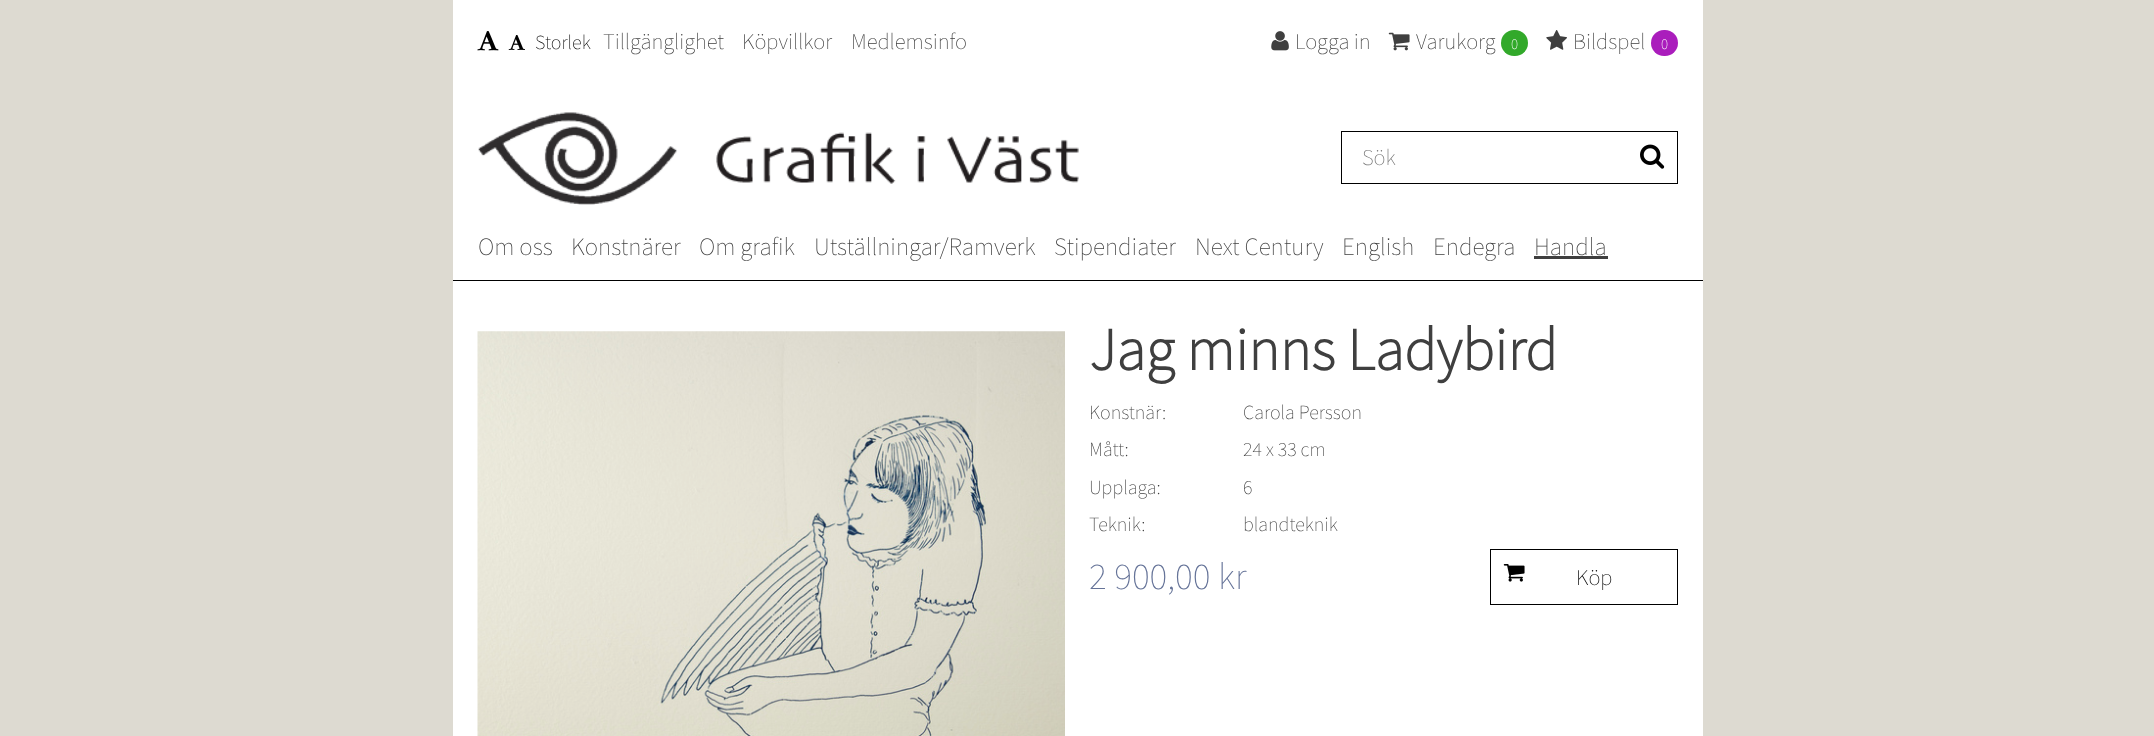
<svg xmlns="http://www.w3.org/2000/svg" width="2154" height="736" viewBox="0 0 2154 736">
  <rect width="100%" height="100%" fill="#dddad1"/>
  <rect x="453" y="0" width="1250" height="736" fill="#ffffff"/>
  <image x="477" y="31" width="22" height="20" href="img1.png"/>
  <image x="508" y="35" width="17" height="15" href="img2.png"/>
  <text x="535" y="49" font-family="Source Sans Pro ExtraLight" font-size="20" font-weight="200" fill="#000000">Storlek</text>
  <text x="603" y="49" font-family="Source Sans Pro ExtraLight" font-size="22.5" font-weight="200" fill="#3f3f3f">Tillgänglighet</text>
  <text x="742" y="49" font-family="Source Sans Pro ExtraLight" font-size="22.5" font-weight="200" fill="#3f3f3f">Köpvillkor</text>
  <text x="851" y="49" font-family="Source Sans Pro ExtraLight" font-size="22.5" font-weight="200" fill="#3f3f3f">Medlemsinfo</text>
  <image x="1271" y="31" width="18" height="20" href="img3.png"/>
  <text x="1295" y="49" font-family="Source Sans Pro ExtraLight" font-size="22.5" font-weight="200" fill="#3f3f3f">Logga in</text>
  <image x="1388" y="32" width="22" height="19" href="img4.png"/>
  <text x="1416" y="49" font-family="Source Sans Pro ExtraLight" font-size="22.5" font-weight="200" fill="#3f3f3f">Varukorg</text>
  <rect x="1501" y="30" width="27" height="26" rx="13" fill="#32a92a"/>
  <text x="1511" y="49" font-family="Source Sans Pro ExtraLight" font-size="15" font-weight="200" fill="#ffffff">0</text>
  <image x="1546" y="30" width="21" height="20" href="img5.png"/>
  <text x="1573" y="49" font-family="Source Sans Pro ExtraLight" font-size="22.5" font-weight="200" fill="#3f3f3f">Bildspel</text>
  <rect x="1651" y="30" width="27" height="26" rx="13" fill="#aa1dbc"/>
  <text x="1661" y="49" font-family="Source Sans Pro ExtraLight" font-size="15" font-weight="200" fill="#ffffff">0</text>
  <image x="478" y="112" width="601" height="93" href="img6.png"/>
  <rect x="1341.5" y="131.5" width="336" height="52" fill="none" stroke="#000000"/>
  <text x="1362" y="165" font-family="Source Sans Pro ExtraLight" font-size="22.5" font-weight="200" fill="#757575">Sök</text>
  <image x="1640" y="144" width="25" height="25" href="img7.png"/>
  <rect x="453" y="280" width="1250" height="1" fill="#000000"/>
  <text x="478" y="255" font-family="Source Sans Pro ExtraLight" font-size="25" font-weight="200" fill="#3f3f3f">Om oss</text>
  <text x="571" y="255" font-family="Source Sans Pro ExtraLight" font-size="25" font-weight="200" fill="#3f3f3f">Konstnärer</text>
  <text x="699" y="255" font-family="Source Sans Pro ExtraLight" font-size="25" font-weight="200" fill="#3f3f3f">Om grafik</text>
  <text x="814" y="255" font-family="Source Sans Pro ExtraLight" font-size="25" font-weight="200" fill="#3f3f3f">Utställningar/Ramverk</text>
  <text x="1054" y="255" font-family="Source Sans Pro ExtraLight" font-size="25" font-weight="200" fill="#3f3f3f">Stipendiater</text>
  <text x="1195" y="255" font-family="Source Sans Pro ExtraLight" font-size="25" font-weight="200" fill="#3f3f3f">Next Century</text>
  <text x="1342" y="255" font-family="Source Sans Pro ExtraLight" font-size="25" font-weight="200" fill="#3f3f3f">English</text>
  <text x="1433" y="255" font-family="Source Sans Pro ExtraLight" font-size="25" font-weight="200" fill="#3f3f3f">Endegra</text>
  <text x="1534" y="255" font-family="Source Sans Pro ExtraLight" font-size="25" font-weight="200" fill="#3f3f3f">Handla</text>
  <rect x="1534" y="256" width="74" height="3" fill="#3f3f3f"/>
  <image x="477" y="331" width="588" height="405" href="img8.png"/>
  <text x="1089" y="370" font-family="Source Sans Pro ExtraLight" font-size="60" font-weight="bold" fill="#3f3f3f">Jag minns Ladybird</text>
  <text x="1089" y="419" font-family="Source Sans Pro ExtraLight" font-size="20" font-weight="200" fill="#3f3f3f">Konstnär:</text>
  <text x="1243" y="419" font-family="Source Sans Pro ExtraLight" font-size="20" font-weight="200" fill="#3f3f3f">Carola Persson</text>
  <text x="1089" y="456" font-family="Source Sans Pro ExtraLight" font-size="20" font-weight="200" fill="#3f3f3f">Mått:</text>
  <text x="1243" y="456" font-family="Source Sans Pro ExtraLight" font-size="20" font-weight="200" fill="#3f3f3f">24 x 33 cm</text>
  <text x="1089" y="494" font-family="Source Sans Pro ExtraLight" font-size="20" font-weight="200" fill="#3f3f3f">Upplaga:</text>
  <text x="1243" y="494" font-family="Source Sans Pro ExtraLight" font-size="20" font-weight="200" fill="#3f3f3f">6</text>
  <text x="1089" y="531" font-family="Source Sans Pro ExtraLight" font-size="20" font-weight="200" fill="#3f3f3f">Teknik:</text>
  <text x="1243" y="531" font-family="Source Sans Pro ExtraLight" font-size="20" font-weight="200" fill="#3f3f3f">blandteknik</text>
  <text x="1089" y="589" font-family="Source Sans Pro ExtraLight" font-size="37.5" font-weight="200" fill="#657398">2 900,00 kr</text>
  <rect x="1490.5" y="549.5" width="187" height="55" fill="none" stroke="#000000"/>
  <image x="1503" y="564" width="22" height="18" href="img9.png"/>
  <text x="1576" y="585" font-family="Source Sans Pro ExtraLight" font-size="22.5" font-weight="200" fill="#000000">Köp</text>
</svg>
